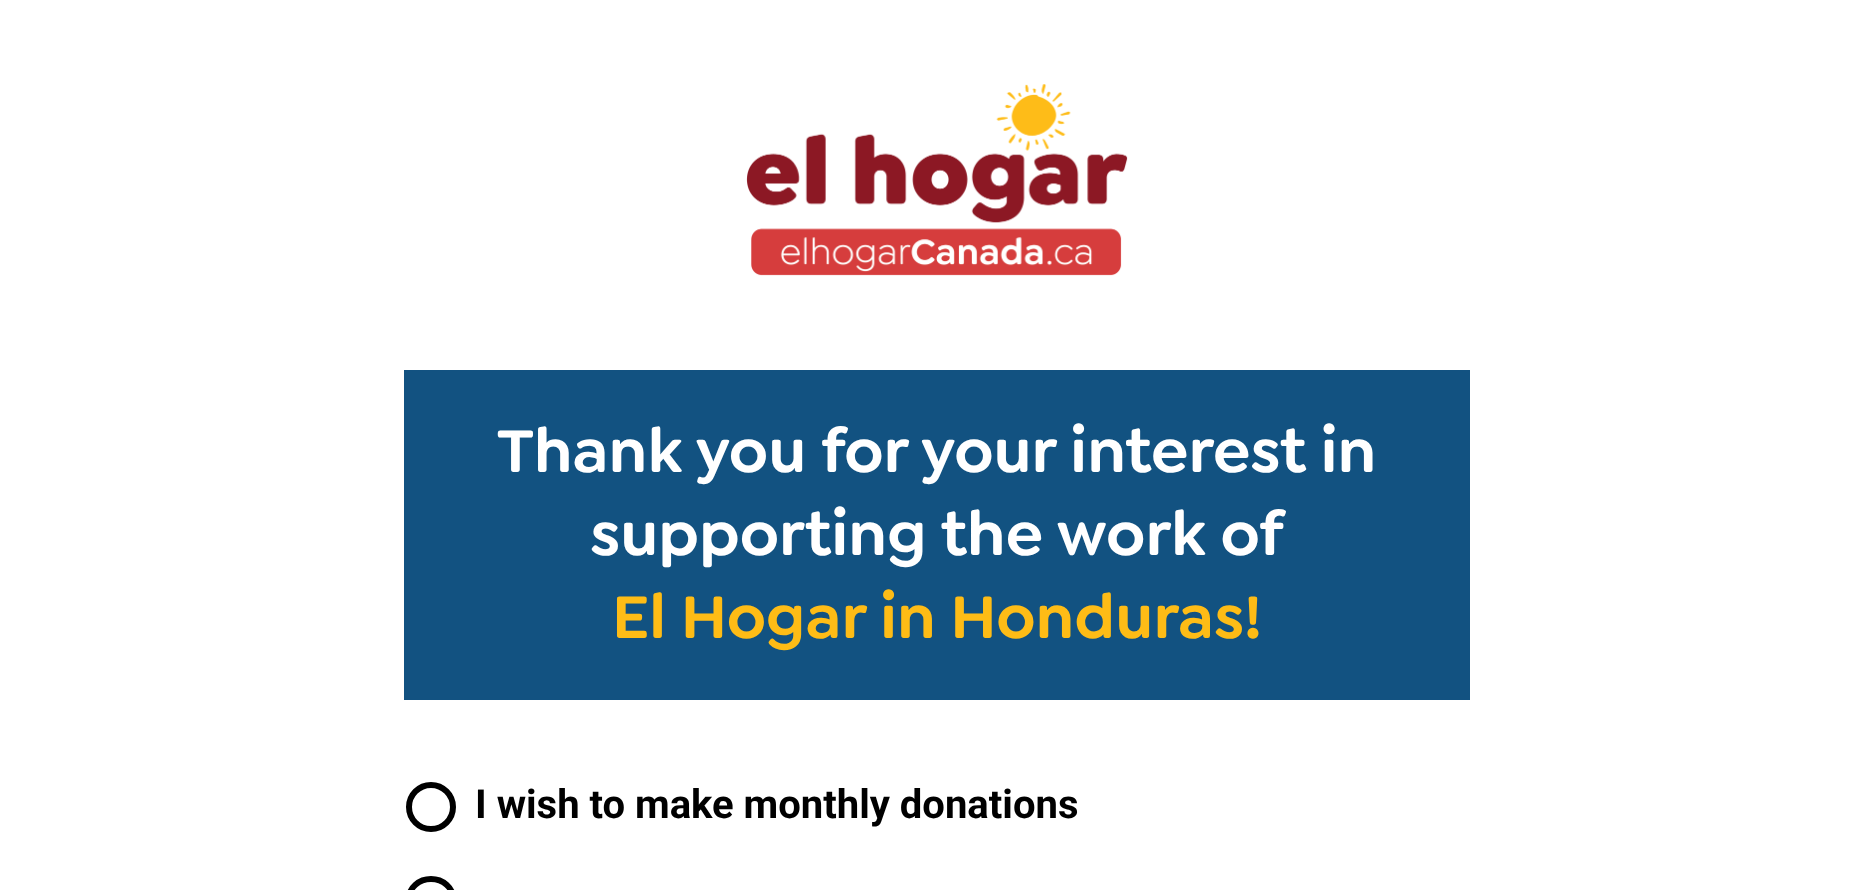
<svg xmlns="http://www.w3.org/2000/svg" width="1874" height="890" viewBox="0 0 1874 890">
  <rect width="100%" height="100%" fill="#ffffff"/>
  <image x="746" y="84" width="382" height="192" href="img1.png"/>
  <rect x="404" y="370" width="1066" height="330" fill="#125281"/>
  <text x="497" y="472" font-family="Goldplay" font-size="64" font-weight="600" fill="#ffffff">Thank you for your interest in</text>
  <text x="590" y="555" font-family="Goldplay" font-size="64" font-weight="600" fill="#ffffff">supporting the work of</text>
  <text x="612" y="638" font-family="Goldplay" font-size="64" font-weight="600" fill="#febc16">El Hogar in Honduras!</text>
  <circle cx="431" cy="807" r="22" fill="none" stroke="#000000" stroke-width="6"/>
  <text x="475" y="818" font-family="Roboto" font-size="40" font-weight="bold" fill="#000000">I wish to make monthly donations</text>
  <rect x="409" y="879" width="44" height="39" rx="22" fill="none" stroke="#000000" stroke-width="6"/>
</svg>
